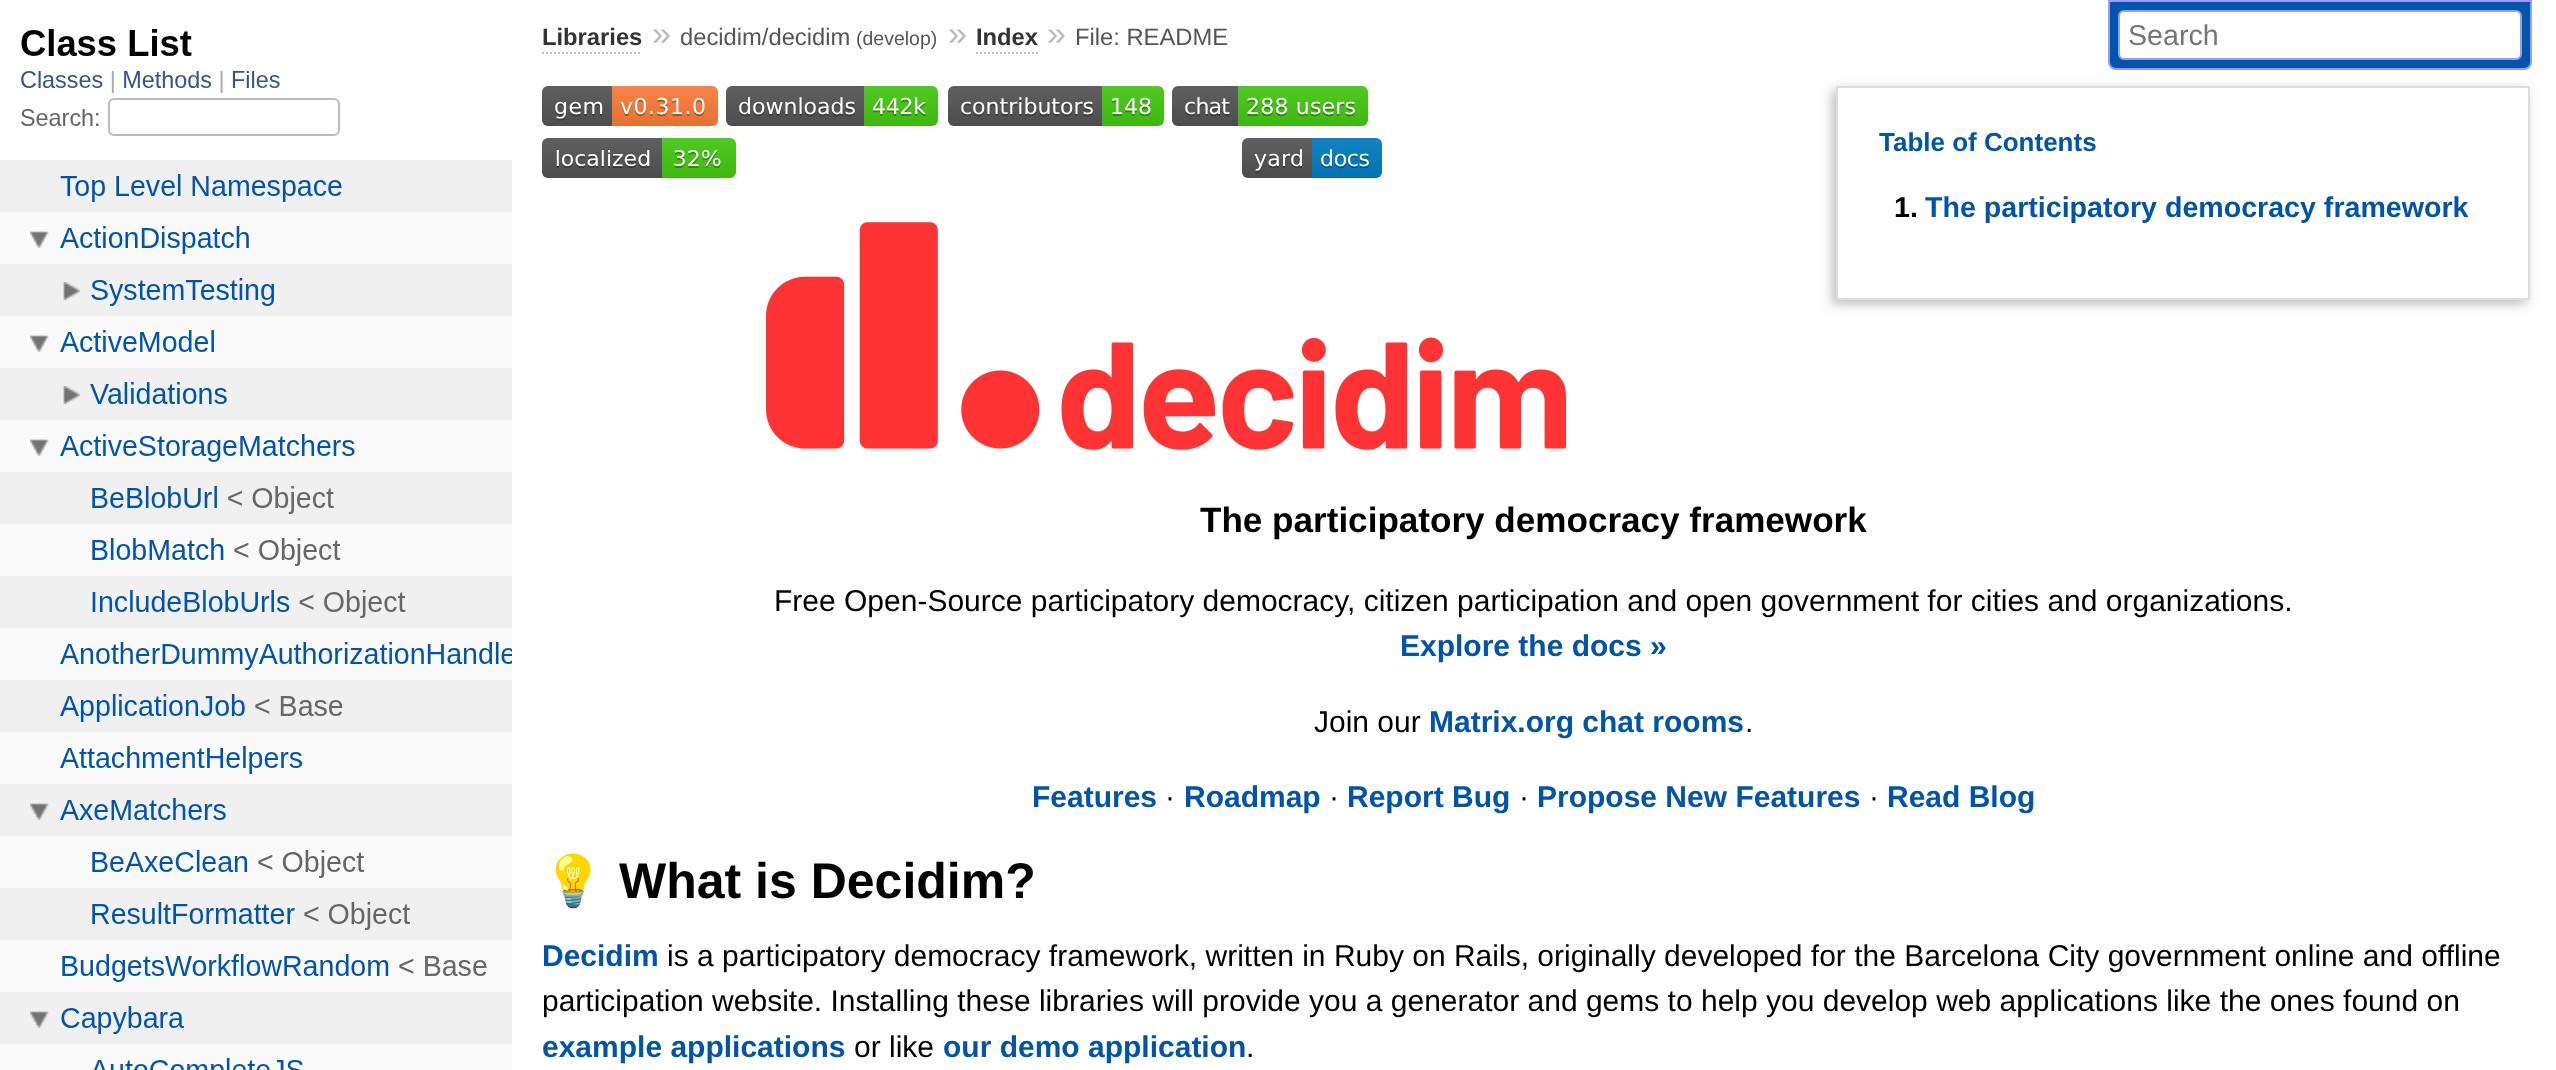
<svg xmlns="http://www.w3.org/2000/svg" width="2556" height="1070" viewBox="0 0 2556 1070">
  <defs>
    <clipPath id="clip1"><path d="M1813 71H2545V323H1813ZM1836 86H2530V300H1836Z" clip-rule="evenodd"/></clipPath>
    <filter id="blur1" x="-50%" y="-200%" width="200%" height="500%"><feGaussianBlur stdDeviation="6"/></filter>
  </defs>
  <rect width="100%" height="100%" fill="#ffffff"/>
  <image x="0" y="29" width="512" height="1041" href="img1.png"/>
  <text x="542" y="45" font-family="Liberation Sans" font-size="23.75" font-weight="bold" fill="#333333">Libraries</text>
  <path d="M542 53H642" fill="none" stroke="#bbbbdd" stroke-width="2" stroke-dasharray="2 2"/>
  <text x="652" y="45" font-family="Liberation Sans" font-size="34" fill="#bbbbbb">»</text>
  <text x="680" y="45" font-family="Liberation Sans" font-size="23.75" fill="#555555">decidim/decidim</text>
  <text x="856" y="45" font-family="Liberation Sans" font-size="19.5" fill="#555555">(develop)</text>
  <text x="948" y="45" font-family="Liberation Sans" font-size="34" fill="#bbbbbb">»</text>
  <text x="976" y="45" font-family="Liberation Sans" font-size="23.75" font-weight="bold" fill="#333333">Index</text>
  <path d="M976 53H1038" fill="none" stroke="#bbbbdd" stroke-width="2" stroke-dasharray="2 2"/>
  <text x="1047" y="45" font-family="Liberation Sans" font-size="34" fill="#bbbbbb">»</text>
  <text x="1075" y="45" font-family="Liberation Sans" font-size="23.75" fill="#555555">File: README</text>
  <path d="M2109 1H2531V62C2531 66 2528 69 2524 69H2116C2112 69 2109 66 2109 62Z" fill="#0055aa" stroke="#9999ff" stroke-width="2"/>
  <rect x="2119" y="11" width="402" height="48" rx="5" fill="#ffffff" stroke="#9999ff" stroke-width="2"/>
  <text x="2128" y="45" font-family="Liberation Sans" font-size="28.6" fill="#757575">Search</text>
  <g clip-path="url(#clip1)">
    <rect x="1832" y="90" width="694" height="214" fill="#bbbbbb" filter="url(#blur1)"/>
  </g>
  <rect x="1837" y="87" width="692" height="212" fill="none" stroke="#dddddd" stroke-width="2"/>
  <text x="1879" y="151" font-family="Liberation Sans" font-size="26" font-weight="bold" fill="#0055aa">Table of Contents</text>
  <text x="1894" y="217" font-family="Liberation Sans" font-size="28.6" font-weight="bold" fill="#000000">1.</text>
  <text x="1925" y="217" font-family="Liberation Sans" font-size="28.6" font-weight="bold" fill="#0055aa">The participatory democracy framework</text>
  <image x="542" y="86" width="176" height="40" href="img2.png"/>
  <image x="726" y="86" width="212" height="40" href="img3.png"/>
  <image x="948" y="86" width="216" height="40" href="img4.png"/>
  <image x="1172" y="86" width="196" height="40" href="img5.png"/>
  <image x="542" y="138" width="194" height="40" href="img6.png"/>
  <image x="1242" y="138" width="140" height="40" href="img7.png"/>
  <image x="766" y="222" width="800" height="228" href="img8.png"/>
  <text x="1200" y="532" font-family="Liberation Sans" font-size="35.1" font-weight="bold" fill="#000000">The participatory democracy framework</text>
  <text x="774" y="611" font-family="Liberation Sans" font-size="30" fill="#000000">Free Open-Source participatory democracy, citizen participation and open government for cities and organizations.</text>
  <text x="1400" y="656" font-family="Liberation Sans" font-size="30" font-weight="bold" fill="#0055aa">Explore the docs »</text>
  <text x="1314" y="732" font-family="Liberation Sans" font-size="30" fill="#000000">Join our</text>
  <text x="1429" y="732" font-family="Liberation Sans" font-size="30" font-weight="bold" fill="#0055aa">Matrix.org chat rooms</text>
  <text x="1745" y="732" font-family="Liberation Sans" font-size="30" fill="#000000">.</text>
  <text x="1032" y="807" font-family="Liberation Sans" font-size="30" font-weight="bold" fill="#0055aa">Features</text>
  <text x="1165" y="807" font-family="Liberation Sans" font-size="30" fill="#000000">·</text>
  <text x="1184" y="807" font-family="Liberation Sans" font-size="30" font-weight="bold" fill="#0055aa">Roadmap</text>
  <text x="1329" y="807" font-family="Liberation Sans" font-size="30" fill="#000000">·</text>
  <text x="1347" y="807" font-family="Liberation Sans" font-size="30" font-weight="bold" fill="#0055aa">Report Bug</text>
  <text x="1519" y="807" font-family="Liberation Sans" font-size="30" fill="#000000">·</text>
  <text x="1537" y="807" font-family="Liberation Sans" font-size="30" font-weight="bold" fill="#0055aa">Propose New Features</text>
  <text x="1869" y="807" font-family="Liberation Sans" font-size="30" fill="#000000">·</text>
  <text x="1887" y="807" font-family="Liberation Sans" font-size="30" font-weight="bold" fill="#0055aa">Read Blog</text>
  <text x="542" y="898" font-family="Noto Color Emoji" font-size="50" font-weight="bold" fill="#000000">💡</text>
  <text x="619" y="898" font-family="Liberation Sans" font-size="50" font-weight="bold" fill="#000000">What is Decidim?</text>
  <text x="542" y="966" font-family="Liberation Sans" font-size="30" font-weight="bold" fill="#0055aa">Decidim</text>
  <text x="667" y="966" font-family="Liberation Sans" font-size="30" fill="#000000">is a participatory democracy framework, written in Ruby on Rails, originally developed for the Barcelona City government online and offline</text>
  <text x="542" y="1011" font-family="Liberation Sans" font-size="30" fill="#000000">participation website. Installing these libraries will provide you a generator and gems to help you develop web applications like the ones found on</text>
  <text x="542" y="1057" font-family="Liberation Sans" font-size="30" font-weight="bold" fill="#0055aa">example applications</text>
  <text x="854" y="1057" font-family="Liberation Sans" font-size="30" fill="#000000">or like</text>
  <text x="943" y="1057" font-family="Liberation Sans" font-size="30" font-weight="bold" fill="#0055aa">our demo application</text>
  <text x="1246" y="1057" font-family="Liberation Sans" font-size="30" fill="#000000">.</text>
</svg>
